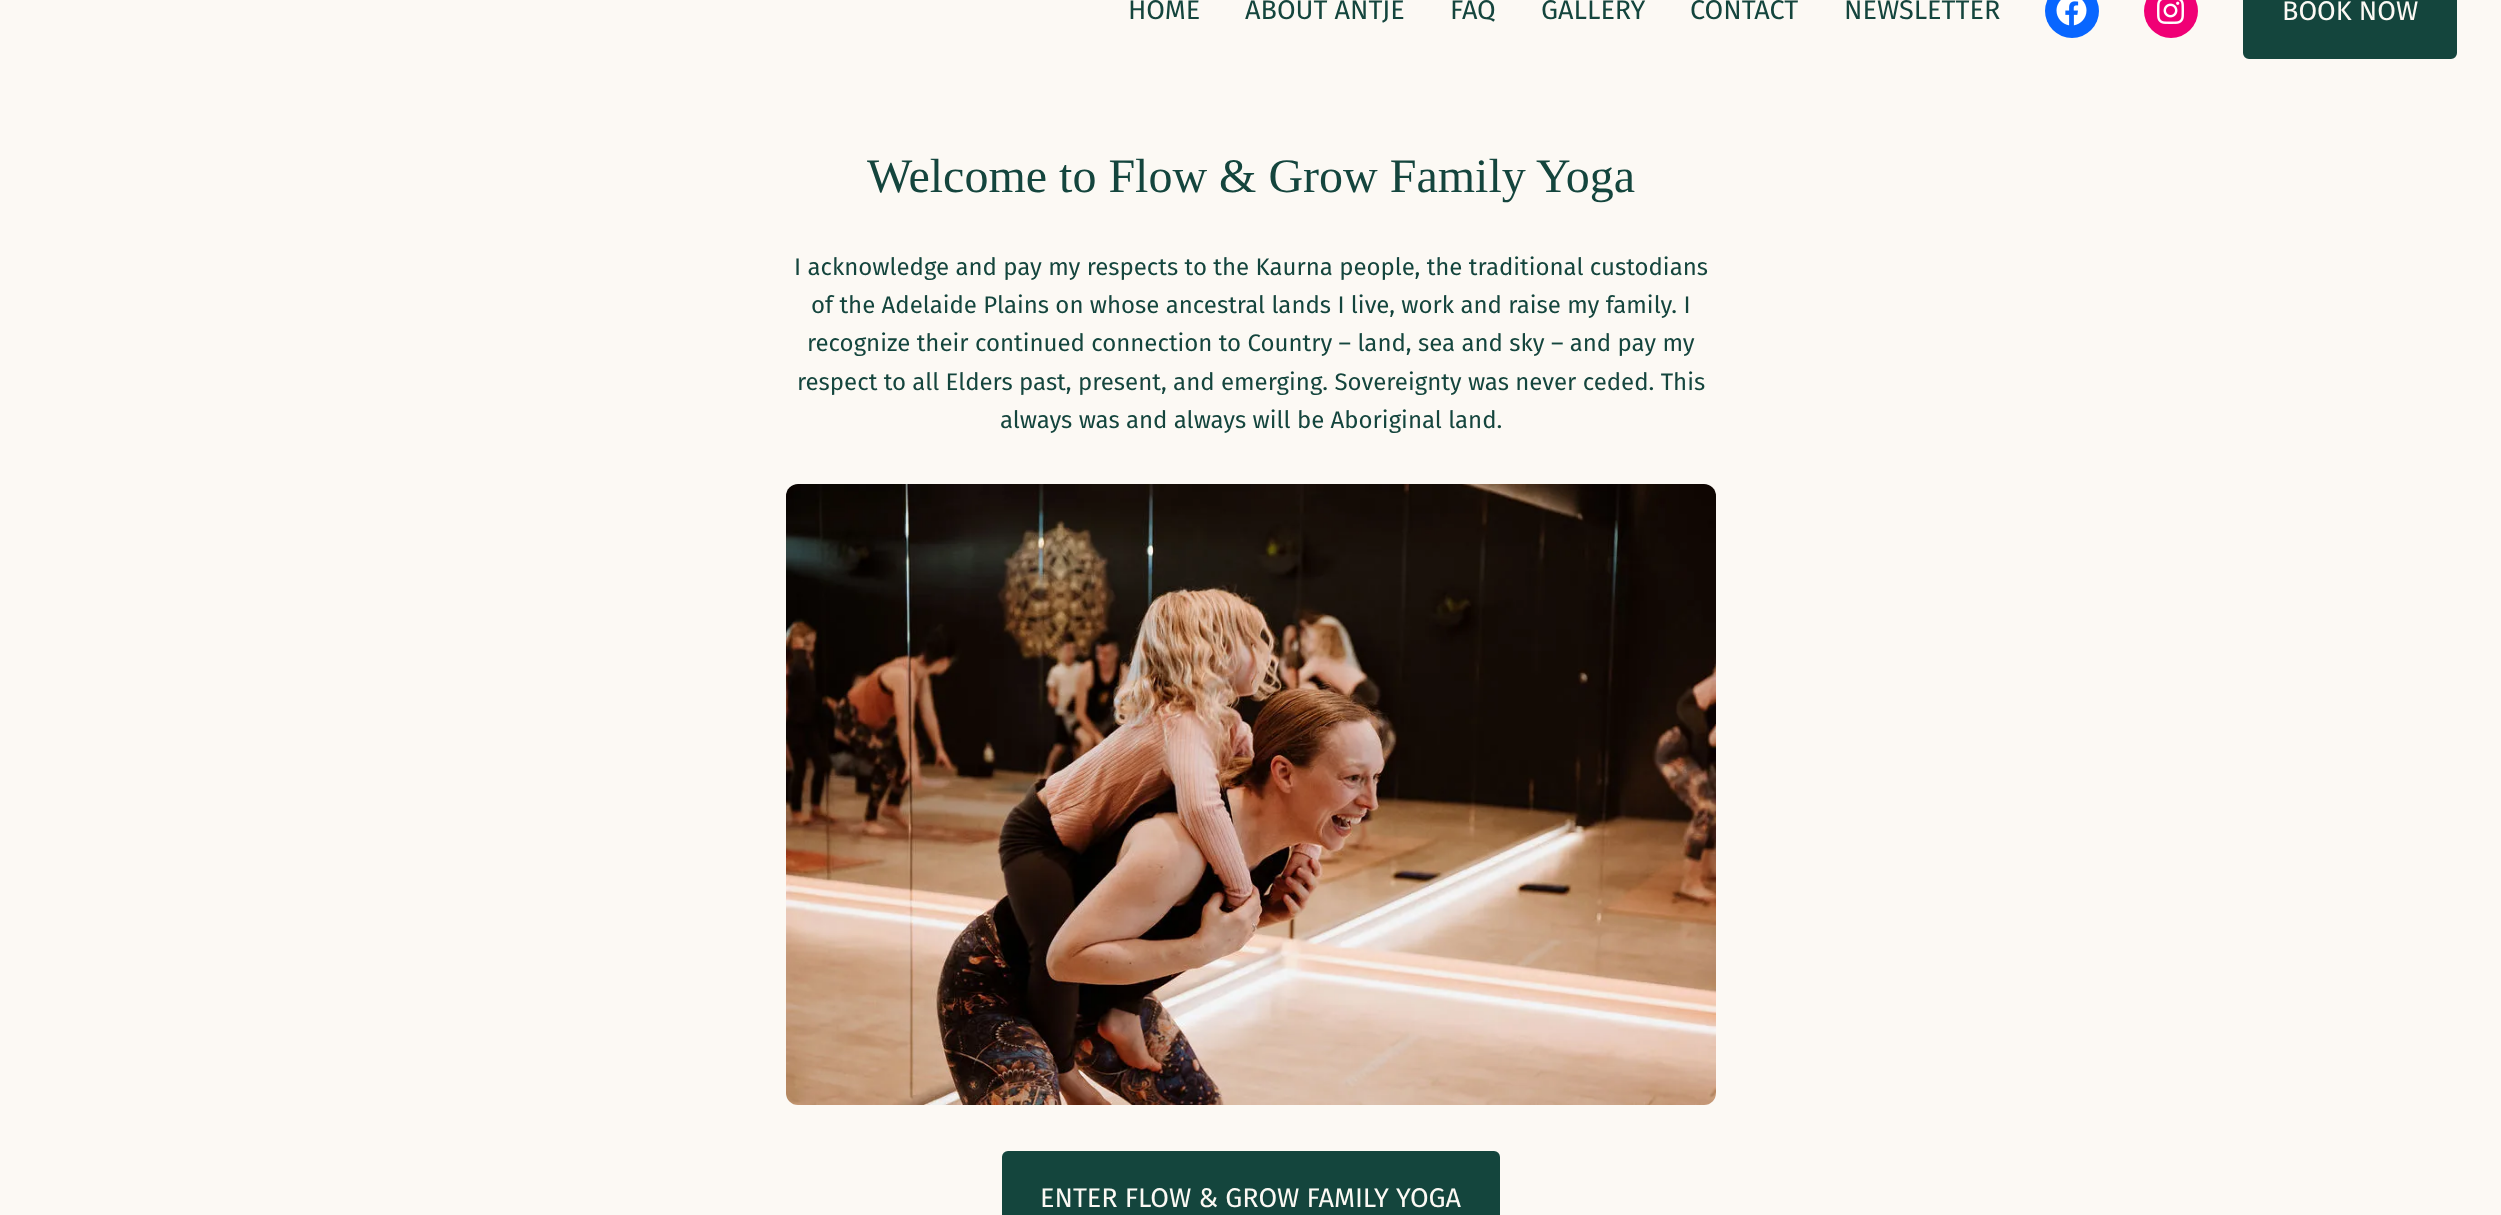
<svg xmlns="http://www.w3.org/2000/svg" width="2501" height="1215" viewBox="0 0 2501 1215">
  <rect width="100%" height="100%" fill="#fcf9f4"/>
  <text x="1128" y="19" font-family="Fira Sans" font-size="27" fill="#14453d">HOME</text>
  <text x="1245" y="19" font-family="Fira Sans" font-size="27" fill="#14453d">ABOUT ANTJE</text>
  <text x="1450" y="19" font-family="Fira Sans" font-size="27" fill="#14453d">FAQ</text>
  <text x="1541" y="19" font-family="Fira Sans" font-size="27" fill="#14453d">GALLERY</text>
  <text x="1690" y="19" font-family="Fira Sans" font-size="27" fill="#14453d">CONTACT</text>
  <text x="1844" y="19" font-family="Fira Sans" font-size="27" fill="#14453d">NEWSLETTER</text>
  <circle cx="2072" cy="11" r="27" fill="#0866ff"/>
  <image x="2056" y="0" width="31" height="26" href="img1.png"/>
  <circle cx="2171" cy="11" r="27" fill="#f00075"/>
  <image x="2157" y="0" width="27" height="24" href="img2.png"/>
  <rect x="2244.5" y="-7.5" width="211" height="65" rx="4.5" fill="#14453d" stroke="#14453d" stroke-width="3"/>
  <text x="2282" y="20" font-family="Fira Sans" font-size="27" fill="#fcf9f4">BOOK NOW</text>
  <text x="867" y="192" font-family="Liberation Serif" font-size="48" fill="#14453d">Welcome to Flow &amp; Grow Family Yoga</text>
  <text x="794" y="275" font-family="Fira Sans" font-size="24" fill="#14453d">I acknowledge and pay my respects to the Kaurna people, the traditional custodians</text>
  <text x="811" y="313" font-family="Fira Sans" font-size="24" fill="#14453d">of the Adelaide Plains on whose ancestral lands I live, work and raise my family. I</text>
  <text x="807" y="351" font-family="Fira Sans" font-size="24" fill="#14453d">recognize their continued connection to Country – land, sea and sky – and pay my</text>
  <text x="797" y="390" font-family="Fira Sans" font-size="24" fill="#14453d">respect to all Elders past, present, and emerging. Sovereignty was never ceded. This</text>
  <text x="1000" y="428" font-family="Fira Sans" font-size="24" fill="#14453d">always was and always will be Aboriginal land.</text>
  <image x="786" y="484" width="930" height="621" href="img3.png"/>
  <rect x="1003.5" y="1152.5" width="495" height="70" rx="4.5" fill="#14453d" stroke="#14453d" stroke-width="3"/>
  <text x="1040" y="1207" font-family="Fira Sans" font-size="27" fill="#fcf9f4">ENTER FLOW &amp; GROW FAMILY YOGA</text>
</svg>
